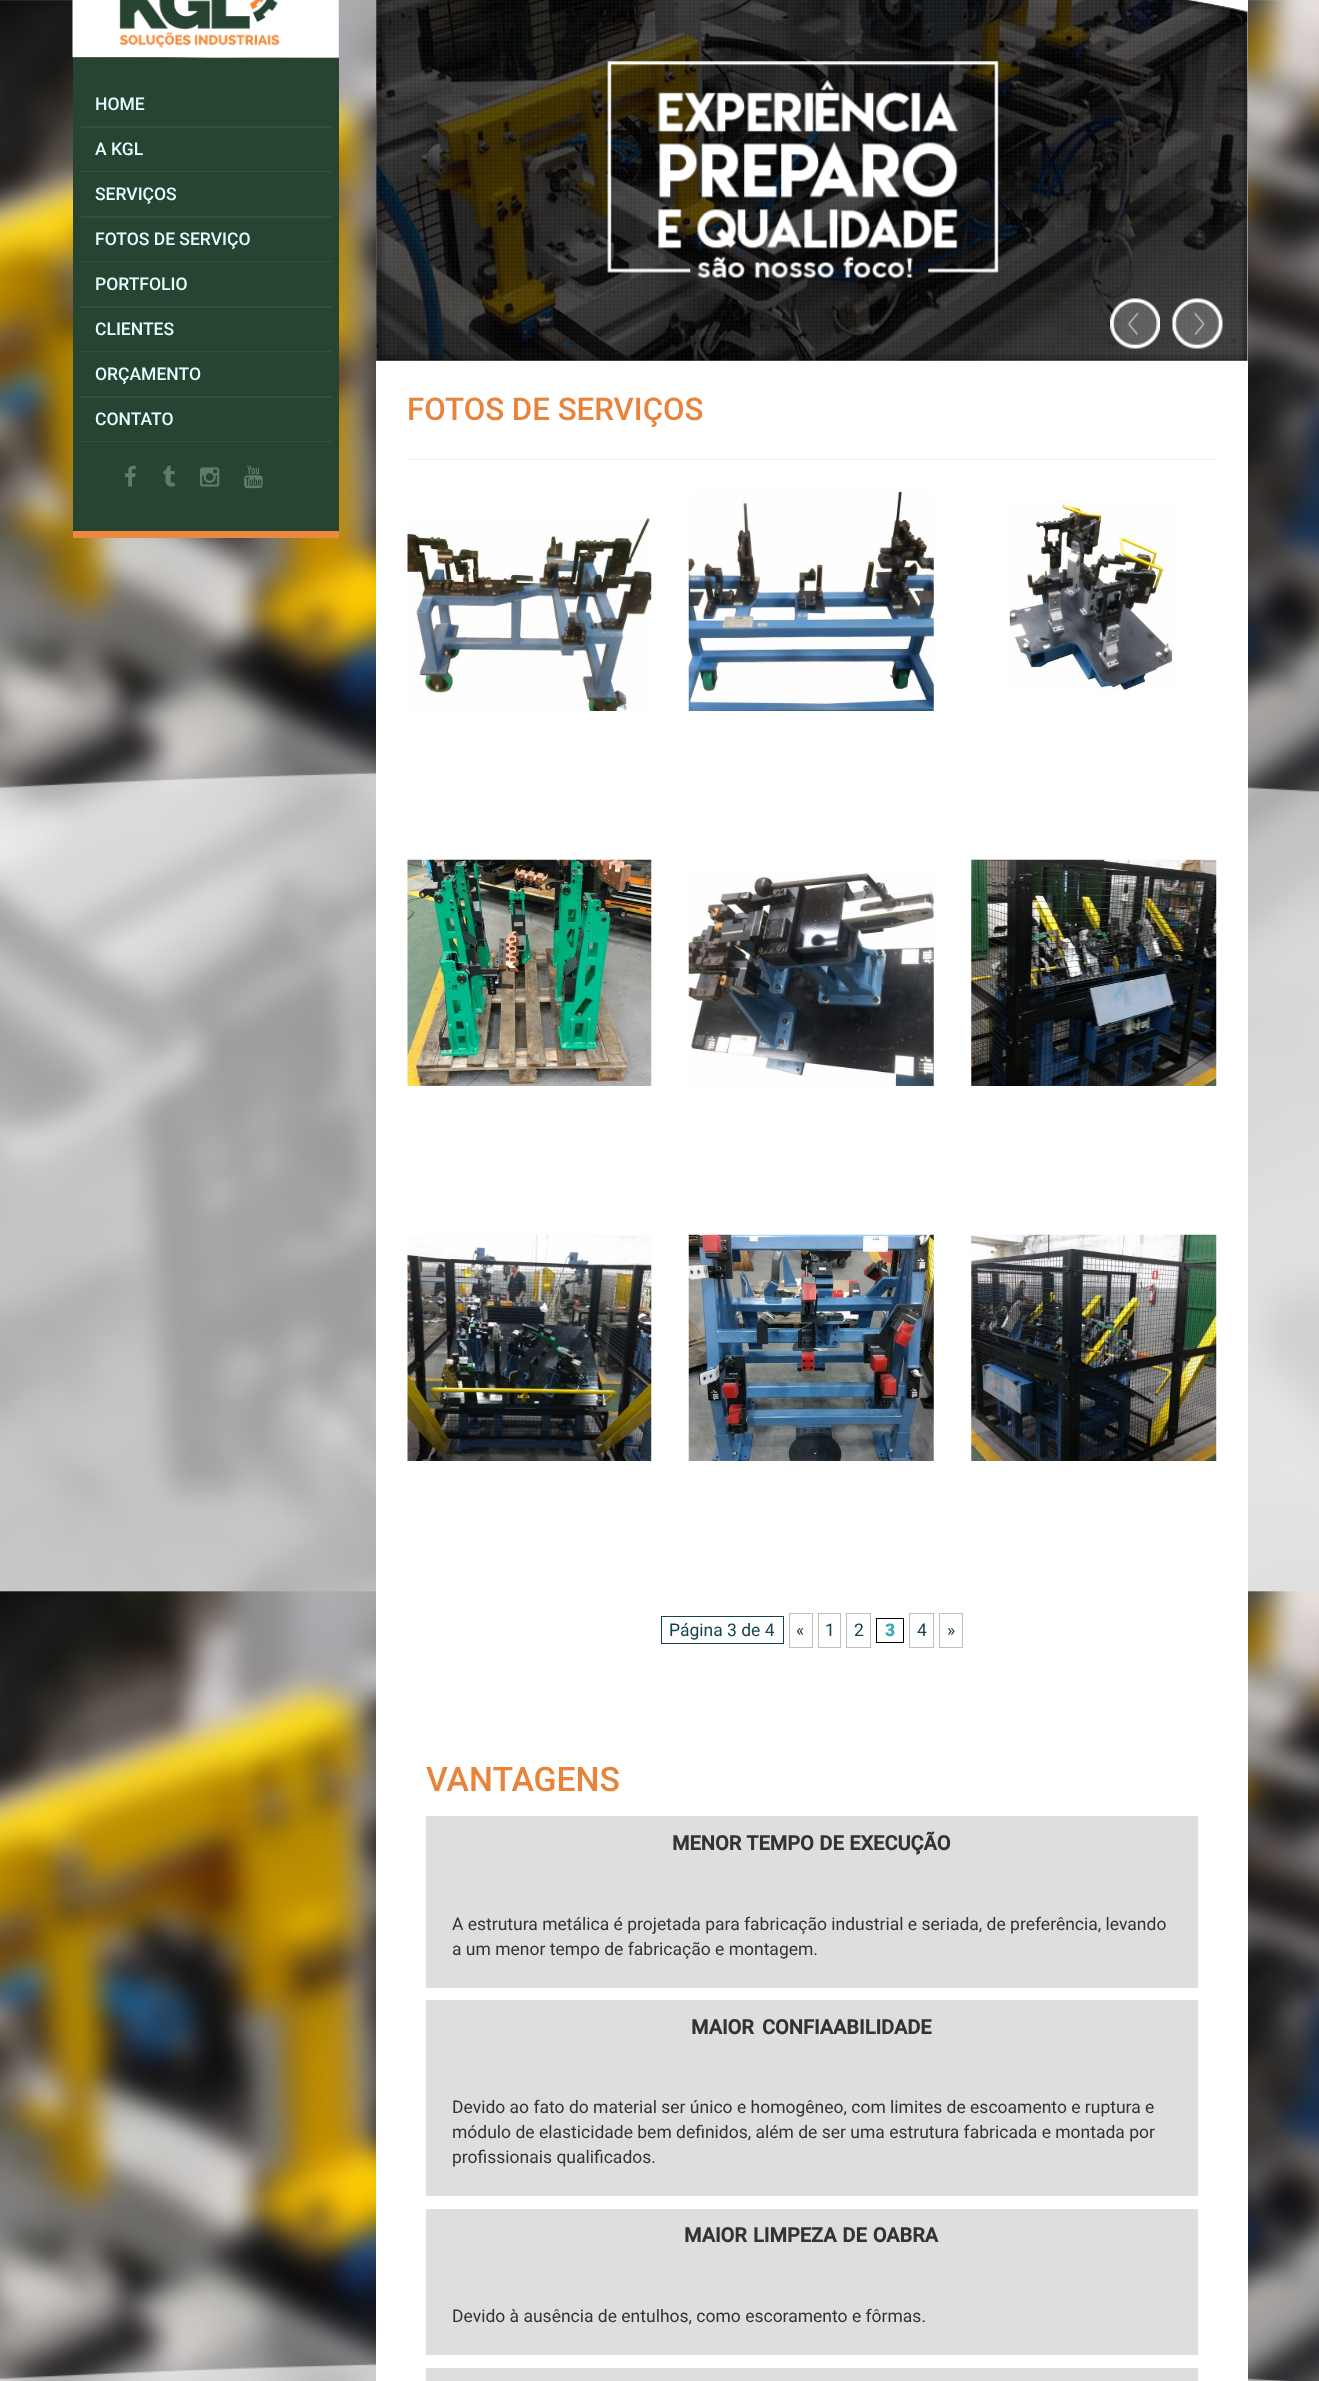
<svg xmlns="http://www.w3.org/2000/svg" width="1319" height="2381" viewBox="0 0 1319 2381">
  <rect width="100%" height="100%" fill="#ffffff"/>
  <image x="0" y="0" width="1319" height="2381" href="img1.png"/>
  <image x="72" y="0" width="267" height="58" href="img2.png"/>
  <rect x="73" y="58" width="266" height="473" fill="#274332"/>
  <rect x="73" y="531" width="266" height="7" fill="#ed8840"/>
  <path d="M332 128H79L82 126H332Z" fill="#33503f"/>
  <text x="95" y="110" font-family="Roboto" font-size="17.5" font-weight="500" fill="#e1ffff">HOME</text>
  <path d="M332 172H79L82 171H332Z" fill="#33503f"/>
  <text x="95" y="155" font-family="Roboto" font-size="17.5" font-weight="500" fill="#e1ffff">A KGL</text>
  <path d="M332 218H79L82 216H332Z" fill="#33503f"/>
  <text x="95" y="200" font-family="Roboto" font-size="17.5" font-weight="500" fill="#e1ffff">SERVIÇOS</text>
  <path d="M332 262H79L82 261H332Z" fill="#33503f"/>
  <text x="95" y="245" font-family="Roboto" font-size="17.5" font-weight="500" fill="#e1ffff">FOTOS DE SERVIÇO</text>
  <path d="M332 308H79L82 306H332Z" fill="#33503f"/>
  <text x="95" y="290" font-family="Roboto" font-size="17.5" font-weight="500" fill="#e1ffff">PORTFOLIO</text>
  <path d="M332 352H79L82 351H332Z" fill="#33503f"/>
  <text x="95" y="335" font-family="Roboto" font-size="17.5" font-weight="500" fill="#e1ffff">CLIENTES</text>
  <path d="M332 398H79L82 396H332Z" fill="#33503f"/>
  <text x="95" y="380" font-family="Roboto" font-size="17.5" font-weight="500" fill="#e1ffff">ORÇAMENTO</text>
  <path d="M332 442H79L82 441H332Z" fill="#33503f"/>
  <text x="95" y="425" font-family="Roboto" font-size="17.5" font-weight="500" fill="#e1ffff">CONTATO</text>
  <image x="125" y="465" width="11" height="22" href="img3.png"/>
  <image x="163" y="465" width="13" height="22" href="img4.png"/>
  <image x="200" y="467" width="20" height="20" href="img5.png"/>
  <image x="244" y="465" width="19" height="24" href="img6.png"/>
  <rect x="376" y="0" width="872" height="2381" fill="#ffffff"/>
  <image x="376" y="0" width="872" height="361" href="img7.png"/>
  <image x="1110" y="298" width="50" height="51" href="img8.png"/>
  <image x="1172" y="298" width="51" height="51" href="img9.png"/>
  <text x="407" y="420" font-family="Roboto" font-size="31.25" font-weight="500" fill="#e8833b">FOTOS DE SERVIÇOS</text>
  <rect x="408" y="459" width="808" height="1" fill="#eeeeee"/>
  <image x="407" y="516" width="245" height="195" href="img10.png"/>
  <image x="688" y="491" width="246" height="220" href="img11.png"/>
  <image x="1009" y="500" width="164" height="192" href="img12.png"/>
  <image x="407" y="859" width="245" height="227" href="img13.png"/>
  <image x="688" y="872" width="246" height="214" href="img14.png"/>
  <image x="971" y="859" width="246" height="227" href="img15.png"/>
  <image x="407" y="1234" width="245" height="227" href="img16.png"/>
  <image x="688" y="1234" width="246" height="227" href="img17.png"/>
  <image x="971" y="1234" width="246" height="227" href="img18.png"/>
  <rect x="661.5" y="1616.5" width="122" height="27" fill="none" stroke="#144251"/>
  <text x="669" y="1636" font-family="Roboto" font-size="17.5" fill="#144251">Página 3 de 4</text>
  <rect x="789.5" y="1613.5" width="23" height="34" fill="none" stroke="#bfbfbf"/>
  <text x="796" y="1636" font-family="Roboto" font-size="17.5" fill="#144251">«</text>
  <rect x="818.5" y="1613.5" width="22" height="34" fill="none" stroke="#bfbfbf"/>
  <text x="825" y="1636" font-family="Roboto" font-size="17.5" fill="#144251">1</text>
  <rect x="846.5" y="1613.5" width="24" height="34" fill="none" stroke="#bfbfbf"/>
  <text x="854" y="1636" font-family="Roboto" font-size="17.5" fill="#144251">2</text>
  <rect x="876.5" y="1618.5" width="27" height="24" fill="none" stroke="#000000"/>
  <text x="885" y="1636" font-family="Roboto" font-size="17.5" font-weight="900" fill="#3aaab7">3</text>
  <rect x="909.5" y="1613.5" width="24" height="34" fill="none" stroke="#bfbfbf"/>
  <text x="917" y="1636" font-family="Roboto" font-size="17.5" fill="#144251">4</text>
  <rect x="939.5" y="1613.5" width="23" height="34" fill="none" stroke="#bfbfbf"/>
  <text x="947" y="1636" font-family="Roboto" font-size="17.5" fill="#144251">»</text>
  <text x="426" y="1791" font-family="Roboto" font-size="33.75" font-weight="500" fill="#e8833b">VANTAGENS</text>
  <rect x="426" y="1816" width="772" height="172" fill="#dedede"/>
  <text x="672" y="1850" word-spacing="0.5" font-family="Roboto" font-size="20" font-weight="bold" fill="#333333">MENOR TEMPO DE EXECUÇÃO</text>
  <text x="452" y="1930" font-family="Roboto" font-size="17.5" fill="#333333">A estrutura metálica é projetada para fabricação industrial e seriada, de preferência, levando</text>
  <text x="452" y="1955" font-family="Roboto" font-size="17.5" fill="#333333">a um menor tempo de fabricação e montagem.</text>
  <rect x="426" y="2000" width="772" height="196" fill="#dedede"/>
  <text x="691" y="2034" word-spacing="3" font-family="Roboto" font-size="20" font-weight="bold" fill="#333333">MAIOR CONFIAABILIDADE</text>
  <text x="452" y="2113" font-family="Roboto" font-size="17.5" fill="#333333">Devido ao fato do material ser único e homogêneo, com limites de escoamento e ruptura e</text>
  <text x="452" y="2138" font-family="Roboto" font-size="17.5" fill="#333333">módulo de elasticidade bem definidos, além de ser uma estrutura fabricada e montada por</text>
  <text x="452" y="2163" font-family="Roboto" font-size="17.5" fill="#333333">profissionais qualificados.</text>
  <rect x="426" y="2209" width="772" height="146" fill="#dedede"/>
  <text x="684" y="2242" word-spacing="1" font-family="Roboto" font-size="20" font-weight="bold" fill="#333333">MAIOR LIMPEZA DE OABRA</text>
  <text x="452" y="2322" font-family="Roboto" font-size="17.5" fill="#333333">Devido à ausência de entulhos, como escoramento e fôrmas.</text>
  <rect x="426" y="2368" width="772" height="13" fill="#dedede"/>
</svg>
